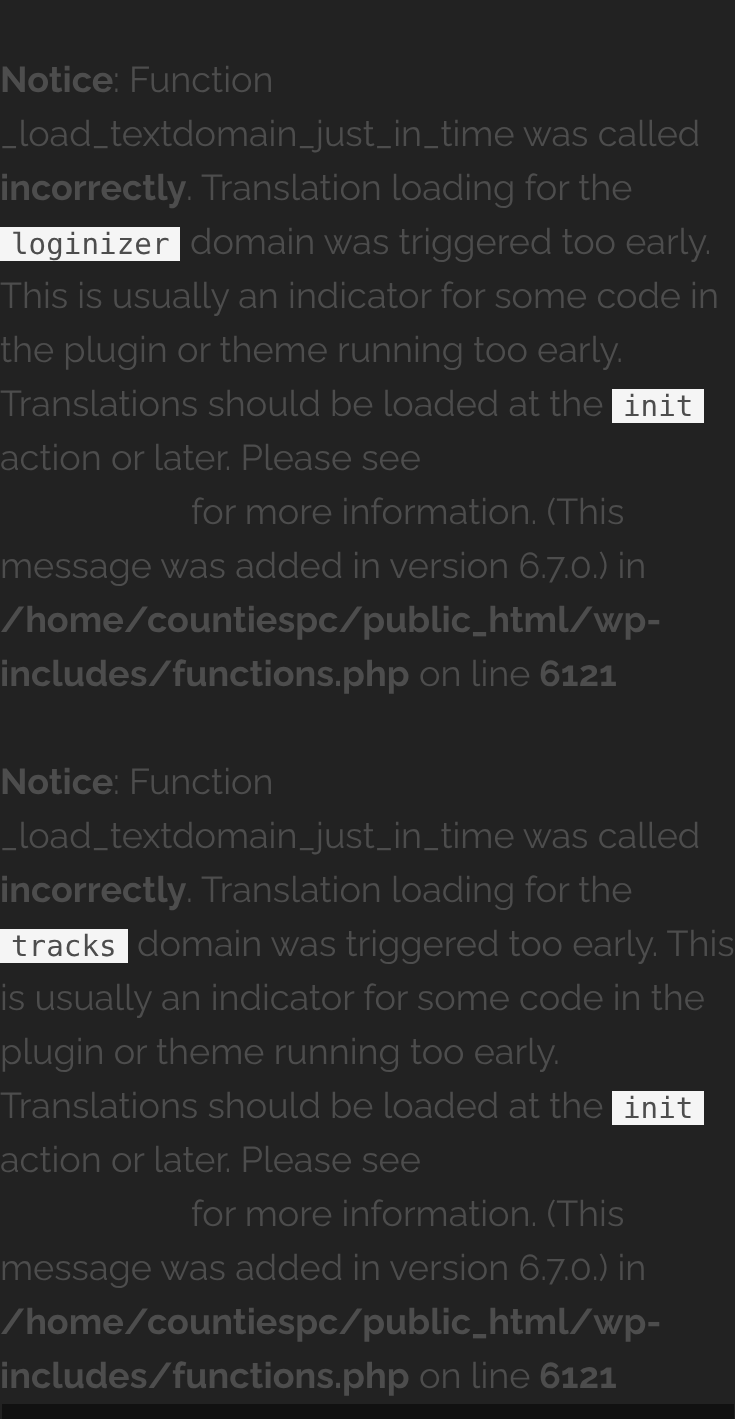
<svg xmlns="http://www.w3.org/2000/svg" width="735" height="1419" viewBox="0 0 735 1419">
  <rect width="100%" height="100%" fill="#222222"/>
  <text x="0" y="92" font-family="Raleway" font-size="36" font-weight="bold" fill="#4d4d4d">Notice</text>
  <text x="113" y="92" font-family="Raleway" font-size="36" fill="#4d4d4d">: Function</text>
  <text x="0" y="146" font-family="Raleway" font-size="36" fill="#4d4d4d">_load_textdomain_just_in_time was called</text>
  <text x="0" y="200" font-family="Raleway" font-size="36" font-weight="bold" fill="#4d4d4d">incorrectly</text>
  <text x="186" y="200" font-family="Raleway" font-size="36" fill="#4d4d4d">. Translation loading for the</text>
  <rect x="0" y="227" width="180" height="34" fill="#f5f5f5"/>
  <text x="11" y="254" font-family="DejaVu Sans Mono" font-size="29.25" fill="#4d4d4d">loginizer</text>
  <text x="190" y="254" font-family="Raleway" font-size="36" fill="#4d4d4d">domain was triggered too early.</text>
  <text x="0" y="308" font-family="Raleway" font-size="36" fill="#4d4d4d">This is usually an indicator for some code in</text>
  <text x="0" y="362" font-family="Raleway" font-size="36" fill="#4d4d4d">the plugin or theme running too early.</text>
  <text x="0" y="416" font-family="Raleway" font-size="36" fill="#4d4d4d">Translations should be loaded at the</text>
  <rect x="612" y="389" width="92" height="34" fill="#f5f5f5"/>
  <text x="623" y="416" font-family="DejaVu Sans Mono" font-size="29.25" fill="#4d4d4d">init</text>
  <text x="0" y="470" font-family="Raleway" font-size="36" fill="#4d4d4d">action or later. Please see</text>
  <text x="191" y="524" font-family="Raleway" font-size="36" fill="#4d4d4d">for more information. (This</text>
  <text x="0" y="578" font-family="Raleway" font-size="36" fill="#4d4d4d">message was added in version 6.7.0.) in</text>
  <text x="0" y="632" font-family="Raleway" font-size="36" font-weight="bold" fill="#4d4d4d">/home/countiespc/public_html/wp-</text>
  <text x="0" y="686" font-family="Raleway" font-size="36" font-weight="bold" fill="#4d4d4d">includes/functions.php</text>
  <text x="419" y="686" font-family="Raleway" font-size="36" fill="#4d4d4d">on line</text>
  <text x="539" y="686" font-family="Raleway" font-size="36" font-weight="bold" fill="#4d4d4d">6121</text>
  <text x="0" y="794" font-family="Raleway" font-size="36" font-weight="bold" fill="#4d4d4d">Notice</text>
  <text x="113" y="794" font-family="Raleway" font-size="36" fill="#4d4d4d">: Function</text>
  <text x="0" y="848" font-family="Raleway" font-size="36" fill="#4d4d4d">_load_textdomain_just_in_time was called</text>
  <text x="0" y="902" font-family="Raleway" font-size="36" font-weight="bold" fill="#4d4d4d">incorrectly</text>
  <text x="186" y="902" font-family="Raleway" font-size="36" fill="#4d4d4d">. Translation loading for the</text>
  <rect x="0" y="929" width="128" height="34" fill="#f5f5f5"/>
  <text x="11" y="956" font-family="DejaVu Sans Mono" font-size="29.25" fill="#4d4d4d">tracks</text>
  <text x="137" y="956" font-family="Raleway" font-size="36" fill="#4d4d4d">domain was triggered too early. This</text>
  <text x="0" y="1010" font-family="Raleway" font-size="36" fill="#4d4d4d">is usually an indicator for some code in the</text>
  <text x="0" y="1064" font-family="Raleway" font-size="36" fill="#4d4d4d">plugin or theme running too early.</text>
  <text x="0" y="1118" font-family="Raleway" font-size="36" fill="#4d4d4d">Translations should be loaded at the</text>
  <rect x="612" y="1091" width="92" height="34" fill="#f5f5f5"/>
  <text x="623" y="1118" font-family="DejaVu Sans Mono" font-size="29.25" fill="#4d4d4d">init</text>
  <text x="0" y="1172" font-family="Raleway" font-size="36" fill="#4d4d4d">action or later. Please see</text>
  <text x="191" y="1226" font-family="Raleway" font-size="36" fill="#4d4d4d">for more information. (This</text>
  <text x="0" y="1280" font-family="Raleway" font-size="36" fill="#4d4d4d">message was added in version 6.7.0.) in</text>
  <text x="0" y="1334" font-family="Raleway" font-size="36" font-weight="bold" fill="#4d4d4d">/home/countiespc/public_html/wp-</text>
  <text x="0" y="1388" font-family="Raleway" font-size="36" font-weight="bold" fill="#4d4d4d">includes/functions.php</text>
  <text x="419" y="1388" font-family="Raleway" font-size="36" fill="#4d4d4d">on line</text>
  <text x="539" y="1388" font-family="Raleway" font-size="36" font-weight="bold" fill="#4d4d4d">6121</text>
  <rect x="2" y="1404" width="732" height="15" fill="#111111"/>
</svg>
